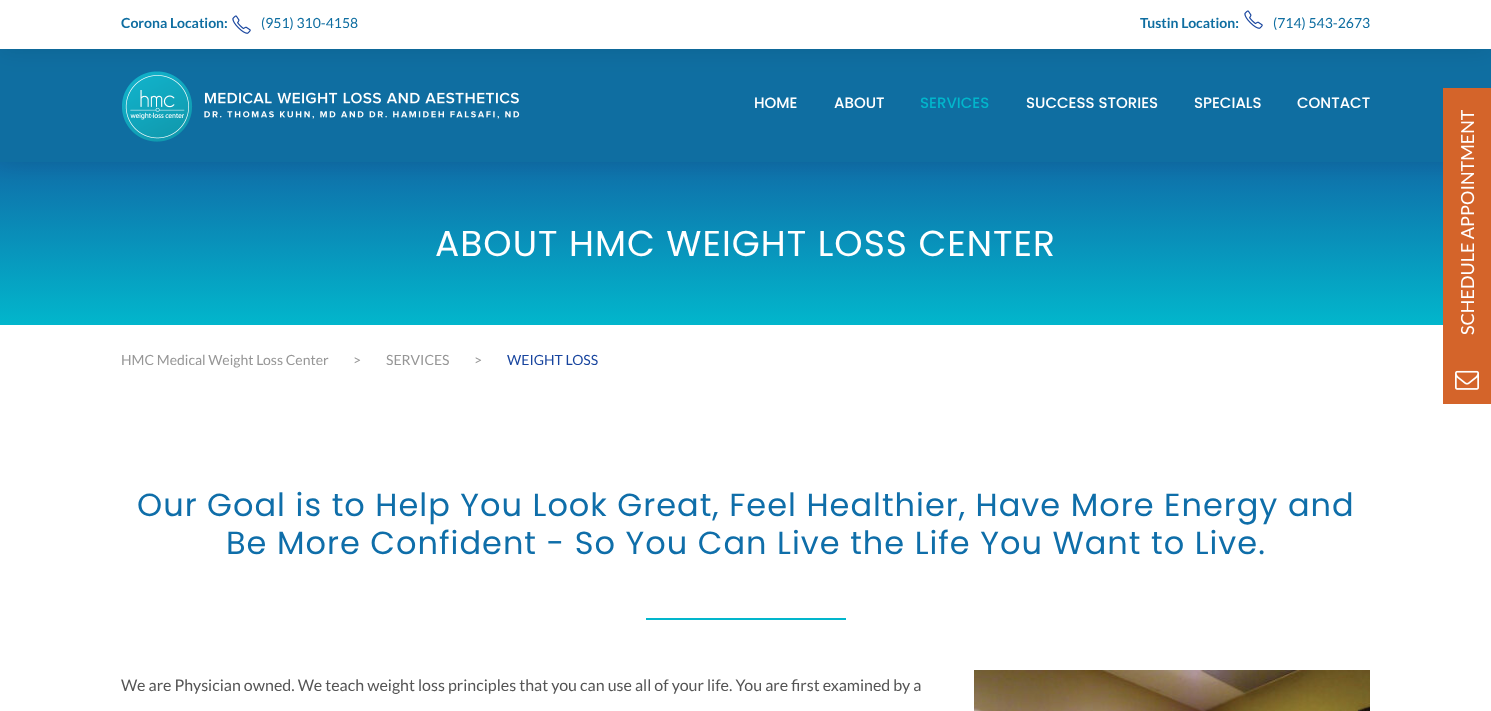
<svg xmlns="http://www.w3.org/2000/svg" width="1491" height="711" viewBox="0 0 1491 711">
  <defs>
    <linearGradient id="g1" gradientUnits="userSpaceOnUse" x1="746" y1="162" x2="746" y2="325"><stop offset="0" stop-color="#0f6ea9"/><stop offset="1" stop-color="#02b6cc"/></linearGradient>
    <filter id="blur1" x="-50%" y="-200%" width="200%" height="500%"><feGaussianBlur stdDeviation="12"/></filter>
  </defs>
  <rect width="100%" height="100%" fill="#ffffff"/>
  <rect x="0" y="162" width="1443" height="163" fill="url(#g1)"/>
  <rect x="0" y="49" width="1491" height="113" fill="#000000" fill-opacity="0.1" filter="url(#blur1)"/>
  <rect x="0" y="49" width="1491" height="113" fill="#0f6ea1"/>
  <image x="122" y="71" width="398" height="71" href="img2.png"/>
  <rect x="0" y="0" width="1491" height="49" fill="#0a0a0a" fill-opacity="0.1" filter="url(#blur1)"/>
  <rect x="0" y="0" width="1491" height="49" fill="#ffffff"/>
  <text x="121" y="28" font-family="Lato" font-size="14" font-weight="bold" fill="#0f6ea1">Corona Location:</text>
  <image x="232" y="15" width="19" height="19" href="img1.png"/>
  <text x="261" y="28" font-family="Lato" font-size="14" fill="#0f6ea1">(951) 310-4158</text>
  <text x="1140" y="28" font-family="Lato" font-size="14" font-weight="bold" fill="#0f6ea1">Tustin Location:</text>
  <image x="1244" y="10" width="19" height="19" href="img1.png"/>
  <text x="1273" y="28" font-family="Lato" font-size="14" fill="#0f6ea1">(714) 543-2673</text>
  <text x="754" y="108" font-family="Poppins" font-size="15" font-weight="500" fill="#ffffff">HOME</text>
  <text x="834" y="108" font-family="Poppins" font-size="15" font-weight="500" fill="#ffffff">ABOUT</text>
  <text x="920" y="108" font-family="Poppins" font-size="15" font-weight="500" fill="#02b6cc">SERVICES</text>
  <text x="1026" y="108" font-family="Poppins" font-size="15" font-weight="500" fill="#ffffff">SUCCESS STORIES</text>
  <text x="1194" y="108" font-family="Poppins" font-size="15" font-weight="500" fill="#ffffff">SPECIALS</text>
  <text x="1297" y="108" font-family="Poppins" font-size="15" font-weight="500" fill="#ffffff">CONTACT</text>
  <text x="435" y="256" font-family="Poppins" font-size="36" letter-spacing="1" fill="#ffffff">ABOUT HMC WEIGHT LOSS CENTER</text>
  <text x="121" y="365" font-family="Lato" font-size="14" fill="#969696">HMC Medical Weight Loss Center</text>
  <text x="353" y="365" font-family="Lato" font-size="14" fill="#969696">&gt;</text>
  <text x="386" y="365" font-family="Lato" font-size="14" fill="#969696">SERVICES</text>
  <text x="474" y="365" font-family="Lato" font-size="14" fill="#969696">&gt;</text>
  <text x="507" y="365" font-family="Lato" font-size="14" fill="#17449e">WEIGHT LOSS</text>
  <text x="137" y="516" font-family="Poppins" font-size="32" letter-spacing="1" fill="#0f6ea9">Our Goal is to Help You Look Great, Feel Healthier, Have More Energy and</text>
  <text x="226" y="554" font-family="Poppins" font-size="32" letter-spacing="1" fill="#0f6ea9">Be More Confident - So You Can Live the Life You Want to Live.</text>
  <rect x="646" y="618" width="200" height="2" fill="#02b6cc"/>
  <text x="121" y="691" font-family="Lato" font-size="16" fill="#555555">We are Physician owned. We teach weight loss principles that you can use all of your life. You are first examined by a</text>
  <image x="974" y="670" width="396" height="41" href="img3.png"/>
  <rect x="1443" y="88" width="48" height="316" fill="#d4642a"/>
  <text x="1474" y="335" transform="rotate(-90 1474 335)" font-family="Lato" font-size="18" fill="#ffffff">SCHEDULE APPOINTMENT</text>
  <image x="1455" y="370" width="24" height="20" href="img4.png"/>
</svg>
